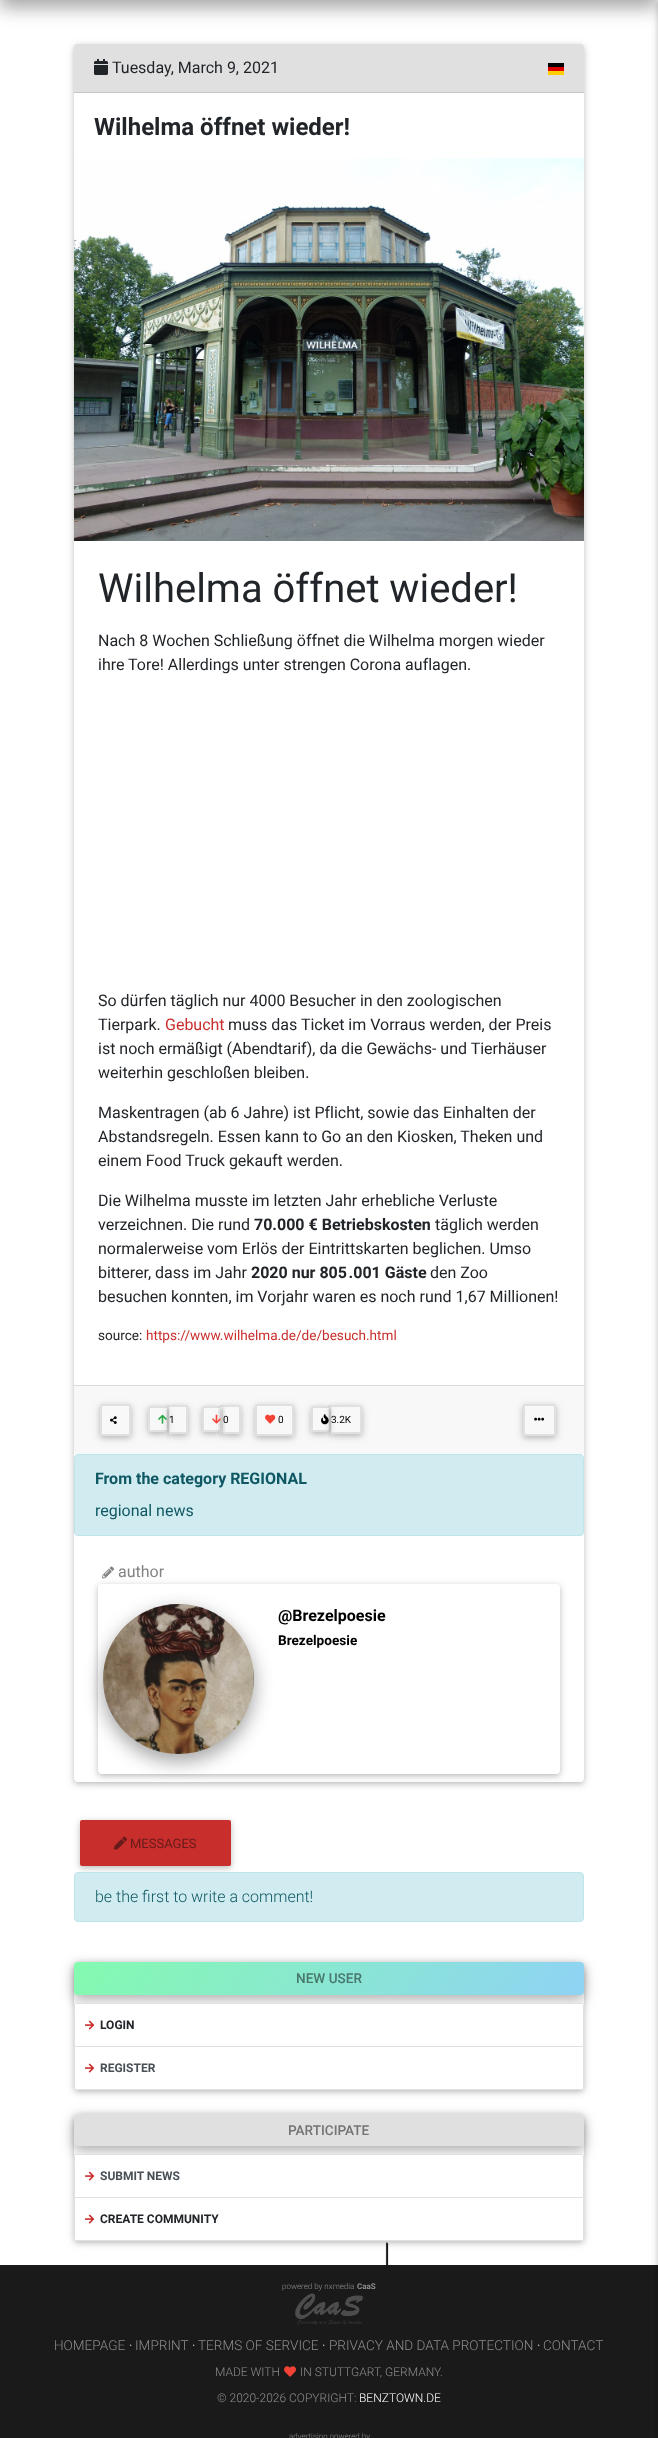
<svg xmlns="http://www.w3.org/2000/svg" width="658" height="2438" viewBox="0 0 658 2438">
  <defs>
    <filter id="blur1" x="-50%" y="-200%" width="200%" height="500%"><feGaussianBlur stdDeviation="10"/></filter>
    <filter id="blur2" x="-50%" y="-200%" width="200%" height="500%"><feGaussianBlur stdDeviation="8.5"/></filter>
    <filter id="blur3" x="-50%" y="-200%" width="200%" height="500%"><feGaussianBlur stdDeviation="5"/></filter>
    <filter id="blur4" x="-50%" y="-200%" width="200%" height="500%"><feGaussianBlur stdDeviation="2.5"/></filter>
    <clipPath id="clip1"><path d="M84 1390H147V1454H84ZM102 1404H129C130 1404 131 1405 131 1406V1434C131 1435 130 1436 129 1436H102C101 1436 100 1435 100 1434V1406C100 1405 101 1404 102 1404Z" clip-rule="evenodd"/></clipPath>
    <clipPath id="clip2"><path d="M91 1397H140V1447H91ZM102 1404H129C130 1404 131 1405 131 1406V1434C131 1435 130 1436 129 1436H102C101 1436 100 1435 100 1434V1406C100 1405 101 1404 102 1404Z" clip-rule="evenodd"/></clipPath>
    <clipPath id="clip3"><path d="M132 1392H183V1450H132ZM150 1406H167V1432H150C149 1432 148 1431 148 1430V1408C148 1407 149 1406 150 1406Z" clip-rule="evenodd"/></clipPath>
    <clipPath id="clip4"><path d="M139 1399H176V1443H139ZM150 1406H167V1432H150C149 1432 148 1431 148 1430V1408C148 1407 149 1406 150 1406Z" clip-rule="evenodd"/></clipPath>
    <clipPath id="clip5"><path d="M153 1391H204V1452H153ZM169 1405H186C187 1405 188 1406 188 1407V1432C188 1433 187 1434 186 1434H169Z" clip-rule="evenodd"/></clipPath>
    <clipPath id="clip6"><path d="M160 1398H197V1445H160ZM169 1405H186C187 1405 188 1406 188 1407V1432C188 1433 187 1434 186 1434H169Z" clip-rule="evenodd"/></clipPath>
    <clipPath id="clip7"><path d="M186 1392H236V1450H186ZM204 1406H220V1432H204C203 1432 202 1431 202 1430V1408C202 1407 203 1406 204 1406Z" clip-rule="evenodd"/></clipPath>
    <clipPath id="clip8"><path d="M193 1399H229V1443H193ZM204 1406H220V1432H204C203 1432 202 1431 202 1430V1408C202 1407 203 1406 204 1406Z" clip-rule="evenodd"/></clipPath>
    <clipPath id="clip9"><path d="M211 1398H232V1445H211ZM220 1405H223V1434H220Z" clip-rule="evenodd"/></clipPath>
    <clipPath id="clip10"><path d="M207 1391H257V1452H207ZM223 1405H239C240 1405 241 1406 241 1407V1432C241 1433 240 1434 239 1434H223Z" clip-rule="evenodd"/></clipPath>
    <clipPath id="clip11"><path d="M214 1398H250V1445H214ZM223 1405H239C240 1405 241 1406 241 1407V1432C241 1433 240 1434 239 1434H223Z" clip-rule="evenodd"/></clipPath>
    <clipPath id="clip12"><path d="M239 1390H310V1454H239ZM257 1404H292C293 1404 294 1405 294 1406V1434C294 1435 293 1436 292 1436H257C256 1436 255 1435 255 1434V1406C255 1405 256 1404 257 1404Z" clip-rule="evenodd"/></clipPath>
    <clipPath id="clip13"><path d="M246 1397H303V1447H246ZM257 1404H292C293 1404 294 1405 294 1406V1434C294 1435 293 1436 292 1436H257C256 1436 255 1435 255 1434V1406C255 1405 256 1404 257 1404Z" clip-rule="evenodd"/></clipPath>
    <clipPath id="clip14"><path d="M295 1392H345V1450H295ZM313 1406H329V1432H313C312 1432 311 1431 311 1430V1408C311 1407 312 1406 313 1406Z" clip-rule="evenodd"/></clipPath>
    <clipPath id="clip15"><path d="M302 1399H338V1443H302ZM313 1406H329V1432H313C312 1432 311 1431 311 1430V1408C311 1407 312 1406 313 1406Z" clip-rule="evenodd"/></clipPath>
    <clipPath id="clip16"><path d="M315 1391H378V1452H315ZM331 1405H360C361 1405 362 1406 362 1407V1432C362 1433 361 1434 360 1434H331Z" clip-rule="evenodd"/></clipPath>
    <clipPath id="clip17"><path d="M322 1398H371V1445H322ZM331 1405H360C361 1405 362 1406 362 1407V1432C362 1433 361 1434 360 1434H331Z" clip-rule="evenodd"/></clipPath>
    <clipPath id="clip18"><path d="M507 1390H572V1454H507ZM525 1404H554C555 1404 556 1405 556 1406V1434C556 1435 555 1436 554 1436H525C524 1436 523 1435 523 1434V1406C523 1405 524 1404 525 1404Z" clip-rule="evenodd"/></clipPath>
    <clipPath id="clip19"><path d="M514 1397H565V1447H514ZM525 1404H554C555 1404 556 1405 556 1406V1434C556 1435 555 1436 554 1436H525C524 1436 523 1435 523 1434V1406C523 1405 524 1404 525 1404Z" clip-rule="evenodd"/></clipPath>
    <filter id="blur5" x="-50%" y="-200%" width="200%" height="500%"><feGaussianBlur stdDeviation="7.5"/></filter>
    <filter id="blur6" x="-50%" y="-200%" width="200%" height="500%"><feGaussianBlur stdDeviation="5.5"/></filter>
    <linearGradient id="g1" gradientUnits="userSpaceOnUse" x1="131" y1="1864" x2="527" y2="2093"><stop offset="0" stop-color="#84fab0"/><stop offset="1" stop-color="#8fd3f4"/></linearGradient>
  </defs>
  <rect width="100%" height="100%" fill="#ffffff"/>
  <image x="385" y="2242" width="4" height="23" href="img1.png"/>
  <rect x="0" y="-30" width="658" height="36" fill="#000000" fill-opacity="0.19" filter="url(#blur1)"/>
  <rect x="0" y="-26" width="658" height="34" fill="#000000" fill-opacity="0.2" filter="url(#blur2)"/>
  <rect x="0" y="2265" width="658" height="173" fill="#1a1a1a"/>
  <rect x="658" y="2" width="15" height="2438" fill="#000000" fill-opacity="0.12" filter="url(#blur3)"/>
  <rect x="658" y="2" width="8" height="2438" fill="#000000" fill-opacity="0.16" filter="url(#blur4)"/>
  <rect x="74" y="46" width="510" height="1738" rx="4" fill="#000000" fill-opacity="0.12" filter="url(#blur3)"/>
  <rect x="74" y="46" width="510" height="1738" rx="4" fill="#000000" fill-opacity="0.16" filter="url(#blur4)"/>
  <rect x="74" y="44" width="510" height="1738" rx="4" fill="#ffffff"/>
  <path d="M77 44H581C582.5 44 584 45.5 584 47V93H74V47C74 45.5 75.5 44 77 44Z" fill="#e0e0e0"/>
  <rect x="74" y="92" width="510" height="1" fill="#c5c5c5"/>
  <image x="94" y="59" width="14" height="16" href="img2.png"/>
  <text x="112" y="73" font-family="Roboto" font-size="16" fill="#212529">Tuesday, March 9, 2021</text>
  <rect x="548" y="63" width="16" height="4" fill="#000000"/>
  <rect x="548" y="67" width="16" height="4" fill="#dd0000"/>
  <rect x="548" y="71" width="16" height="4" fill="#ffce00"/>
  <text x="94" y="135" font-family="Roboto" font-size="24" font-weight="bold" fill="#212529">Wilhelma öffnet wieder!</text>
  <image x="74" y="158" width="510" height="383" href="img3.png"/>
  <text x="98" y="602" font-family="Roboto" font-size="40" fill="#212529">Wilhelma öffnet wieder!</text>
  <text x="98" y="646" font-family="Roboto" font-size="16" fill="#212529">Nach 8 Wochen Schließung öffnet die Wilhelma morgen wieder</text>
  <text x="98" y="670" font-family="Roboto" font-size="16" fill="#212529">ihre Tore! Allerdings unter strengen Corona auflagen.</text>
  <text x="98" y="1006" font-family="Roboto" font-size="16" fill="#212529">So dürfen täglich nur 4000 Besucher in den zoologischen</text>
  <text x="98" y="1030" font-family="Roboto" font-size="16" fill="#212529">Tierpark.</text>
  <text x="165" y="1030" font-family="Roboto" font-size="16" fill="#c82e2c">Gebucht</text>
  <text x="228" y="1030" font-family="Roboto" font-size="16" fill="#212529">muss das Ticket im Vorraus werden, der Preis</text>
  <text x="98" y="1054" font-family="Roboto" font-size="16" fill="#212529">ist noch ermäßigt (Abendtarif), da die Gewächs- und Tierhäuser</text>
  <text x="98" y="1078" font-family="Roboto" font-size="16" fill="#212529">weiterhin geschloßen bleiben.</text>
  <text x="98" y="1118" font-family="Roboto" font-size="16" fill="#212529">Maskentragen (ab 6 Jahre) ist Pflicht, sowie das Einhalten der</text>
  <text x="98" y="1142" font-family="Roboto" font-size="16" fill="#212529">Abstandsregeln. Essen kann to Go an den Kiosken, Theken und</text>
  <text x="98" y="1166" font-family="Roboto" font-size="16" fill="#212529">einem Food Truck gekauft werden.</text>
  <text x="98" y="1206" font-family="Roboto" font-size="16" fill="#212529">Die Wilhelma musste im letzten Jahr erhebliche Verluste</text>
  <text x="98" y="1230" font-family="Roboto" font-size="16" fill="#212529">verzeichnen. Die rund</text>
  <text x="254" y="1230" font-family="Roboto" font-size="16" font-weight="bold" fill="#212529">70.000 € Betriebskosten</text>
  <text x="435" y="1230" font-family="Roboto" font-size="16" fill="#212529">täglich werden</text>
  <text x="98" y="1254" font-family="Roboto" font-size="16" fill="#212529">normalerweise vom Erlös der Eintrittskarten beglichen. Umso</text>
  <text x="98" y="1278" font-family="Roboto" font-size="16" fill="#212529">bitterer, dass im Jahr</text>
  <text x="251" y="1278" font-family="Roboto" font-size="16" font-weight="bold" fill="#212529">2020 nur 805 .001 Gäste</text>
  <text x="430" y="1278" font-family="Roboto" font-size="16" fill="#212529">den Zoo</text>
  <text x="98" y="1302" font-family="Roboto" font-size="16" fill="#212529">besuchen konnten, im Vorjahr waren es noch rund 1,67 Millionen!</text>
  <text x="98" y="1340" font-family="Roboto" font-size="13.6" fill="#212529">source:</text>
  <text x="146" y="1340" font-family="Roboto" font-size="13.6" fill="#c82e2c">https://www.wilhelma.de/de/besuch.html</text>
  <rect x="74" y="1386" width="510" height="68" fill="#f8f8f8"/>
  <rect x="74" y="1385" width="510" height="1" fill="#dadada"/>
  <g clip-path="url(#clip1)">
    <rect x="100" y="1406" width="31" height="32" rx="2" fill="#000000" fill-opacity="0.12" filter="url(#blur3)"/>
  </g>
  <g clip-path="url(#clip2)">
    <rect x="100" y="1406" width="31" height="32" rx="2" fill="#000000" fill-opacity="0.16" filter="url(#blur4)"/>
  </g>
  <rect x="101" y="1405" width="29" height="30" rx="1" fill="none" stroke="#e0e0e0" stroke-width="2"/>
  <image x="110" y="1416" width="7" height="8" href="img4.png"/>
  <g clip-path="url(#clip3)">
    <rect x="148" y="1408" width="19" height="26" rx="2" fill="#000000" fill-opacity="0.12" filter="url(#blur3)"/>
  </g>
  <g clip-path="url(#clip4)">
    <rect x="148" y="1408" width="19" height="26" rx="2" fill="#000000" fill-opacity="0.16" filter="url(#blur4)"/>
  </g>
  <rect x="149" y="1406" width="18" height="2" fill="#e0e0e0"/>
  <rect x="149" y="1430" width="18" height="2" fill="#e0e0e0"/>
  <rect x="148" y="1407" width="2" height="24" fill="#e0e0e0"/>
  <rect x="167" y="1407" width="2" height="29" fill="#000000" fill-opacity="0.16" filter="url(#blur4)"/>
  <rect x="167" y="1405" width="2" height="2" fill="#e0e0e0"/>
  <rect x="167" y="1432" width="2" height="2" fill="#e0e0e0"/>
  <g clip-path="url(#clip5)">
    <rect x="169" y="1407" width="19" height="29" rx="2" fill="#000000" fill-opacity="0.12" filter="url(#blur3)"/>
  </g>
  <g clip-path="url(#clip6)">
    <rect x="169" y="1407" width="19" height="29" rx="2" fill="#000000" fill-opacity="0.16" filter="url(#blur4)"/>
  </g>
  <rect x="169" y="1405" width="18" height="2" fill="#e0e0e0"/>
  <rect x="186" y="1406" width="2" height="27" fill="#e0e0e0"/>
  <rect x="169" y="1432" width="18" height="2" fill="#e0e0e0"/>
  <image x="158" y="1414" width="9" height="10" href="img5.png"/>
  <text x="169" y="1423" font-family="Roboto" font-size="10" fill="#000000">1</text>
  <g clip-path="url(#clip7)">
    <rect x="202" y="1408" width="18" height="26" rx="2" fill="#000000" fill-opacity="0.12" filter="url(#blur3)"/>
  </g>
  <g clip-path="url(#clip8)">
    <rect x="202" y="1408" width="18" height="26" rx="2" fill="#000000" fill-opacity="0.16" filter="url(#blur4)"/>
  </g>
  <rect x="203" y="1406" width="17" height="2" fill="#e0e0e0"/>
  <rect x="203" y="1430" width="17" height="2" fill="#e0e0e0"/>
  <rect x="202" y="1407" width="2" height="24" fill="#e0e0e0"/>
  <g clip-path="url(#clip9)">
    <rect x="220" y="1407" width="3" height="29" fill="#000000" fill-opacity="0.16" filter="url(#blur4)"/>
  </g>
  <rect x="220" y="1405" width="3" height="2" fill="#e0e0e0"/>
  <rect x="220" y="1432" width="3" height="2" fill="#e0e0e0"/>
  <g clip-path="url(#clip10)">
    <rect x="223" y="1407" width="18" height="29" rx="2" fill="#000000" fill-opacity="0.12" filter="url(#blur3)"/>
  </g>
  <g clip-path="url(#clip11)">
    <rect x="223" y="1407" width="18" height="29" rx="2" fill="#000000" fill-opacity="0.16" filter="url(#blur4)"/>
  </g>
  <rect x="223" y="1405" width="17" height="2" fill="#e0e0e0"/>
  <rect x="239" y="1406" width="2" height="27" fill="#e0e0e0"/>
  <rect x="223" y="1432" width="17" height="2" fill="#e0e0e0"/>
  <image x="212" y="1414" width="9" height="10" href="img6.png"/>
  <text x="223" y="1423" font-family="Roboto" font-size="10" fill="#000000">0</text>
  <g clip-path="url(#clip12)">
    <rect x="255" y="1406" width="39" height="32" rx="2" fill="#000000" fill-opacity="0.12" filter="url(#blur3)"/>
  </g>
  <g clip-path="url(#clip13)">
    <rect x="255" y="1406" width="39" height="32" rx="2" fill="#000000" fill-opacity="0.16" filter="url(#blur4)"/>
  </g>
  <rect x="256" y="1405" width="37" height="30" rx="1" fill="none" stroke="#e0e0e0" stroke-width="2"/>
  <image x="265" y="1414" width="11" height="10" href="img7.png"/>
  <text x="278" y="1423" font-family="Roboto" font-size="10" fill="#000000">0</text>
  <g clip-path="url(#clip14)">
    <rect x="311" y="1408" width="18" height="26" rx="2" fill="#000000" fill-opacity="0.12" filter="url(#blur3)"/>
  </g>
  <g clip-path="url(#clip15)">
    <rect x="311" y="1408" width="18" height="26" rx="2" fill="#000000" fill-opacity="0.16" filter="url(#blur4)"/>
  </g>
  <rect x="312" y="1406" width="17" height="2" fill="#e0e0e0"/>
  <rect x="312" y="1430" width="17" height="2" fill="#e0e0e0"/>
  <rect x="311" y="1407" width="2" height="24" fill="#e0e0e0"/>
  <rect x="329" y="1407" width="2" height="29" fill="#000000" fill-opacity="0.16" filter="url(#blur4)"/>
  <rect x="329" y="1405" width="2" height="2" fill="#e0e0e0"/>
  <rect x="329" y="1432" width="2" height="2" fill="#e0e0e0"/>
  <g clip-path="url(#clip16)">
    <rect x="331" y="1407" width="31" height="29" rx="2" fill="#000000" fill-opacity="0.12" filter="url(#blur3)"/>
  </g>
  <g clip-path="url(#clip17)">
    <rect x="331" y="1407" width="31" height="29" rx="2" fill="#000000" fill-opacity="0.16" filter="url(#blur4)"/>
  </g>
  <rect x="331" y="1405" width="30" height="2" fill="#e0e0e0"/>
  <rect x="360" y="1406" width="2" height="27" fill="#e0e0e0"/>
  <rect x="331" y="1432" width="30" height="2" fill="#e0e0e0"/>
  <image x="321" y="1414" width="8" height="11" href="img8.png"/>
  <text x="331" y="1423" font-family="Roboto" font-size="10" fill="#000000">3.2K</text>
  <g clip-path="url(#clip18)">
    <rect x="523" y="1406" width="33" height="32" rx="2" fill="#000000" fill-opacity="0.12" filter="url(#blur3)"/>
  </g>
  <g clip-path="url(#clip19)">
    <rect x="523" y="1406" width="33" height="32" rx="2" fill="#000000" fill-opacity="0.16" filter="url(#blur4)"/>
  </g>
  <rect x="524" y="1405" width="31" height="30" rx="1" fill="none" stroke="#e0e0e0" stroke-width="2"/>
  <image x="534" y="1417" width="11" height="4" href="img9.png"/>
  <rect x="74.5" y="1454.5" width="509" height="81" rx="3.5" fill="#d1ecf1" stroke="#bee5eb"/>
  <text x="95" y="1484" font-family="Roboto" font-size="16" font-weight="bold" fill="#0f5863">From the category REGIONAL</text>
  <text x="95" y="1516" font-family="Roboto" font-size="16" fill="#0f5863">regional news</text>
  <image x="102" y="1566" width="12" height="13" href="img10.png"/>
  <text x="118" y="1577" font-family="Roboto" font-size="16" fill="#838383">author</text>
  <rect x="98" y="1586" width="462" height="190" rx="4" fill="#000000" fill-opacity="0.12" filter="url(#blur3)"/>
  <rect x="98" y="1586" width="462" height="190" rx="4" fill="#000000" fill-opacity="0.16" filter="url(#blur4)"/>
  <rect x="98" y="1584" width="462" height="190" rx="4" fill="#ffffff"/>
  <rect x="103" y="1610" width="151" height="150" rx="75" fill="#000000" fill-opacity="0.19" filter="url(#blur1)"/>
  <rect x="103" y="1612" width="151" height="150" rx="75" fill="#000000" fill-opacity="0.2" filter="url(#blur2)"/>
  <image x="103" y="1604" width="151" height="150" href="img11.png"/>
  <text x="278" y="1621" font-family="Roboto" font-size="16" font-weight="bold" fill="#000000">@Brezelpoesie</text>
  <text x="278" y="1645" font-family="Roboto" font-size="13.6" font-weight="bold" fill="#000000">Brezelpoesie</text>
  <rect x="80" y="1822" width="151" height="46" rx="2" fill="#000000" fill-opacity="0.12" filter="url(#blur3)"/>
  <rect x="80" y="1822" width="151" height="46" rx="2" fill="#000000" fill-opacity="0.16" filter="url(#blur4)"/>
  <rect x="80" y="1820" width="151" height="46" rx="2" fill="#c82e2c"/>
  <image x="114" y="1836" width="13" height="14" href="img12.png"/>
  <text x="130" y="1848" font-family="Roboto" font-size="13" fill="#681b1a">MESSAGES</text>
  <rect x="74.5" y="1872.5" width="509" height="49" rx="3.5" fill="#d1ecf1" stroke="#bee5eb"/>
  <text x="95" y="1902" font-family="Roboto" font-size="16" font-weight="300" fill="#0f5863">be the first to write a comment!</text>
  <rect x="74" y="1964" width="510" height="128" rx="4" fill="#000000" fill-opacity="0.12" filter="url(#blur3)"/>
  <rect x="74" y="1964" width="510" height="128" rx="4" fill="#000000" fill-opacity="0.16" filter="url(#blur4)"/>
  <rect x="74" y="1962" width="510" height="128" rx="4" fill="#ffffff"/>
  <rect x="74" y="1966" width="510" height="33" rx="4" fill="#000000" fill-opacity="0.15" filter="url(#blur5)"/>
  <rect x="74" y="1967" width="510" height="33" rx="4" fill="#000000" fill-opacity="0.18" filter="url(#blur6)"/>
  <rect x="74" y="1962" width="510" height="33" rx="4" fill="url(#g1)"/>
  <text x="296" y="1983" font-family="Roboto" font-size="13.6" font-weight="500" fill="#48776d">NEW USER</text>
  <path d="M76 2003.5H582C583 2003.5 583.5 2004 583.5 2005V2046.5H74.5V2005C74.5 2004 75 2003.5 76 2003.5Z" fill="#ffffff" stroke="#e0e0e0"/>
  <image x="85" y="2020" width="10" height="10" href="img13.png"/>
  <text x="100" y="2029" font-family="Roboto" font-size="12" font-weight="bold" fill="#212529">LOGIN</text>
  <path d="M74 2047H584V2088C584 2089 583 2090 582 2090H76C75 2090 74 2089 74 2088Z" fill="#ffffff"/>
  <rect x="583" y="2047" width="1" height="42" fill="#070707" fill-opacity="0.12"/>
  <rect x="75" y="2089" width="508" height="1" fill="#070707" fill-opacity="0.12"/>
  <rect x="74" y="2047" width="1" height="42" fill="#e0e0e0"/>
  <image x="85" y="2063" width="10" height="10" href="img13.png"/>
  <text x="100" y="2072" font-family="Roboto" font-size="12" font-weight="bold" fill="#495057">REGISTER</text>
  <rect x="74" y="2116" width="510" height="127" rx="4" fill="#000000" fill-opacity="0.12" filter="url(#blur3)"/>
  <rect x="74" y="2116" width="510" height="127" rx="4" fill="#000000" fill-opacity="0.16" filter="url(#blur4)"/>
  <rect x="74" y="2114" width="510" height="127" rx="4" fill="#ffffff"/>
  <rect x="74" y="2118" width="510" height="32" rx="4" fill="#000000" fill-opacity="0.15" filter="url(#blur5)"/>
  <rect x="74" y="2119" width="510" height="32" rx="4" fill="#000000" fill-opacity="0.18" filter="url(#blur6)"/>
  <rect x="74" y="2114" width="510" height="32" rx="4" fill="#e0e0e0"/>
  <text x="288" y="2135" font-family="Roboto" font-size="13.6" font-weight="500" fill="#747474">PARTICIPATE</text>
  <path d="M76 2154.5H582C583 2154.5 583.5 2155 583.5 2156V2197.5H74.5V2156C74.5 2155 75 2154.5 76 2154.5Z" fill="#ffffff" stroke="#e0e0e0"/>
  <image x="85" y="2171" width="10" height="10" href="img13.png"/>
  <text x="100" y="2180" font-family="Roboto" font-size="12" font-weight="bold" fill="#495057">SUBMIT NEWS</text>
  <path d="M74 2198H584V2239C584 2240 583 2241 582 2241H76C75 2241 74 2240 74 2239Z" fill="#ffffff"/>
  <rect x="583" y="2198" width="1" height="42" fill="#070707" fill-opacity="0.12"/>
  <rect x="75" y="2240" width="508" height="1" fill="#070707" fill-opacity="0.12"/>
  <rect x="74" y="2198" width="1" height="42" fill="#e0e0e0"/>
  <image x="85" y="2214" width="10" height="10" href="img13.png"/>
  <text x="100" y="2223" font-family="Roboto" font-size="12" font-weight="bold" fill="#212529">CREATE COMMUNITY</text>
  <text x="282" y="2289" font-family="Roboto" font-size="8" font-weight="300" fill="#8d8d8d">powered by nxmedia</text>
  <text x="357" y="2289" font-family="Roboto" font-size="8" font-weight="bold" fill="#8d8d8d">CaaS</text>
  <image x="295" y="2293" width="68" height="32" href="img14.png"/>
  <text x="54" y="2350" font-family="Roboto" font-size="13.6" font-weight="300" fill="#8d8d8d">HOMEPAGE</text>
  <text x="129" y="2350" font-family="Roboto" font-size="13.6" font-weight="300" fill="#ffffff">·</text>
  <text x="135" y="2350" font-family="Roboto" font-size="13.6" font-weight="300" fill="#8d8d8d">IMPRINT</text>
  <text x="192" y="2350" font-family="Roboto" font-size="13.6" font-weight="300" fill="#ffffff">·</text>
  <text x="198" y="2350" font-family="Roboto" font-size="13.6" font-weight="300" fill="#8d8d8d">TERMS OF SERVICE</text>
  <text x="322" y="2350" font-family="Roboto" font-size="13.6" font-weight="300" fill="#ffffff">·</text>
  <text x="329" y="2350" font-family="Roboto" font-size="13.6" font-weight="300" fill="#8d8d8d">PRIVACY AND DATA PROTECTION</text>
  <text x="537" y="2350" font-family="Roboto" font-size="13.6" font-weight="300" fill="#ffffff">·</text>
  <text x="543" y="2350" font-family="Roboto" font-size="13.6" font-weight="300" fill="#8d8d8d">CONTACT</text>
  <text x="215" y="2376" font-family="Roboto" font-size="12" font-weight="300" fill="#8d8d8d">MADE WITH</text>
  <image x="284" y="2366" width="12" height="11" href="img15.png"/>
  <text x="300" y="2376" font-family="Roboto" font-size="12" font-weight="300" fill="#8d8d8d">IN STUTTGART, GERMANY.</text>
  <text x="217" y="2402" font-family="Roboto" font-size="12" font-weight="300" fill="#8d8d8d">© 2020-2026 COPYRIGHT:</text>
  <text x="359" y="2402" font-family="Roboto" font-size="12" font-weight="300" fill="#ffffff">BENZTOWN.DE</text>
  <text x="289" y="2439" font-family="Roboto" font-size="8" font-weight="300" fill="#8d8d8d">advertising powered by</text>
</svg>
